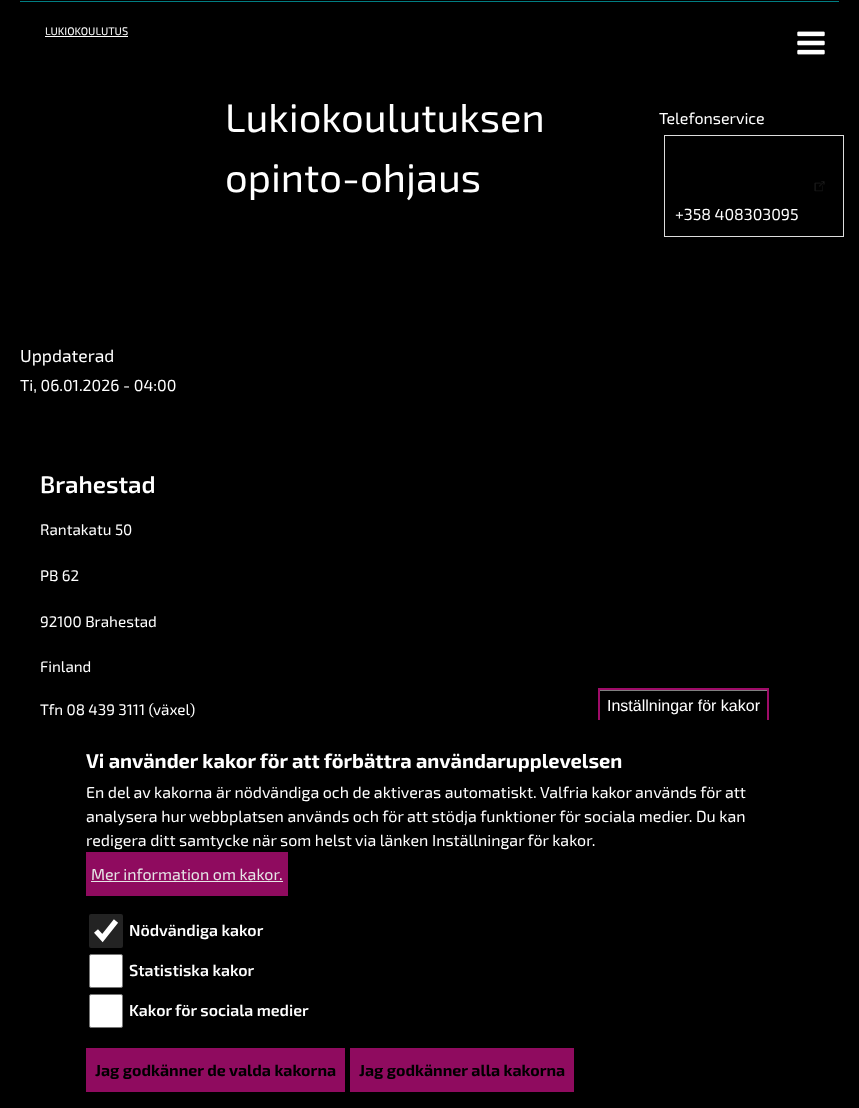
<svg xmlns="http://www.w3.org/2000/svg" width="859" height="1108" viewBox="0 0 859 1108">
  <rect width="100%" height="100%" fill="#000000"/>
  <rect x="20" y="1" width="819" height="1" fill="#007e83"/>
  <text x="45" y="35" font-family="'Exo 2'" font-size="11" fill="#ffffff">LUKIOKOULUTUS</text>
  <rect x="45" y="36" width="83" height="1" fill="#ffffff"/>
  <text x="225" y="132" font-family="'Exo 2'" font-size="40" fill="#ffffff">Lukiokoulutuksen</text>
  <text x="225" y="192" font-family="'Exo 2'" font-size="40" fill="#ffffff">opinto-ohjaus</text>
  <text x="659" y="124" font-family="'Exo 2'" font-size="16" fill="#ffffff">Telefonservice</text>
  <rect x="664.5" y="135.5" width="179" height="101" fill="none" stroke="#dddddd"/>
  <image x="814" y="181" width="11" height="11" href="img1.png"/>
  <text x="675" y="220" font-family="'Exo 2'" font-size="16" fill="#ffffff">+358 408303095</text>
  <text x="20" y="362" font-family="'Exo 2'" font-size="17.5" fill="#ffffff">Uppdaterad</text>
  <text x="20" y="391" font-family="'Exo 2'" font-size="16" fill="#ffffff">Ti, 06.01.2026 - 04:00</text>
  <image x="797" y="31" width="28" height="24" href="img2.png"/>
  <text x="40" y="493" font-family="'Exo 2'" font-size="24" font-weight="600" fill="#ffffff">Brahestad</text>
  <text x="40" y="535" font-family="'Exo 2'" font-size="15.25" fill="#ffffff">Rantakatu 50</text>
  <text x="40" y="581" font-family="'Exo 2'" font-size="15.25" fill="#ffffff">PB 62</text>
  <text x="40" y="627" font-family="'Exo 2'" font-size="15.25" fill="#ffffff">92100 Brahestad</text>
  <text x="40" y="672" font-family="'Exo 2'" font-size="15.25" fill="#ffffff">Finland</text>
  <text x="40" y="715" font-family="'Exo 2'" font-size="15.25" fill="#ffffff">Tfn 08 439 3111 (växel)</text>
  <rect x="600" y="690" width="167" height="1" fill="#808080"/>
  <rect x="598" y="688" width="171" height="2" fill="#9f0c69"/>
  <rect x="767" y="688" width="2" height="32" fill="#9f0c69"/>
  <rect x="598" y="688" width="2" height="32" fill="#9f0c69"/>
  <text x="607" y="711" font-family="Liberation Sans" font-size="16" fill="#ffffff">Inställningar för kakor</text>
  <text x="86" y="768" font-family="'Exo 2'" font-size="20" font-weight="bold" fill="#ffffff">Vi använder kakor för att förbättra användarupplevelsen</text>
  <text x="86" y="798" font-family="'Exo 2'" font-size="16" fill="#ffffff">En del av kakorna är nödvändiga och de aktiveras automatiskt. Valfria kakor används för att</text>
  <text x="86" y="822" font-family="'Exo 2'" font-size="16" fill="#ffffff">analysera hur webbplatsen används och för att stödja funktioner för sociala medier. Du kan</text>
  <text x="86" y="846" font-family="'Exo 2'" font-size="16" fill="#ffffff">redigera ditt samtycke när som helst via länken Inställningar för kakor.</text>
  <rect x="86" y="852" width="202" height="44" fill="#8f0b5f"/>
  <text x="91" y="880" font-family="'Exo 2'" font-size="16" fill="#e6e6e6">Mer information om kakor.</text>
  <rect x="91" y="881" width="192" height="1" fill="#e6e6e6"/>
  <rect x="89" y="914" width="34" height="34" rx="2" fill="#232323"/>
  <path d="M96 931L102.5 938L116 921" fill="none" stroke="#ffffff" stroke-width="5.4"/>
  <text x="129" y="936" font-family="'Exo 2'" font-size="16" font-weight="600" fill="#ffffff">Nödvändiga kakor</text>
  <rect x="89.5" y="954.5" width="33" height="33" rx="1.5" fill="#ffffff" stroke="#767676"/>
  <text x="129" y="976" font-family="'Exo 2'" font-size="16" font-weight="600" fill="#ffffff">Statistiska kakor</text>
  <rect x="89.5" y="994.5" width="33" height="33" rx="1.5" fill="#ffffff" stroke="#767676"/>
  <text x="129" y="1016" font-family="'Exo 2'" font-size="16" font-weight="600" fill="#ffffff">Kakor för sociala medier</text>
  <rect x="86" y="1048" width="259" height="44" fill="#8f0b5f"/>
  <text x="95" y="1076" font-family="'Exo 2'" font-size="16" font-weight="bold" fill="#000000">Jag godkänner de valda kakorna</text>
  <rect x="350" y="1048" width="224" height="44" fill="#8f0b5f"/>
  <text x="359" y="1076" font-family="'Exo 2'" font-size="16" font-weight="bold" fill="#000000">Jag godkänner alla kakorna</text>
</svg>
